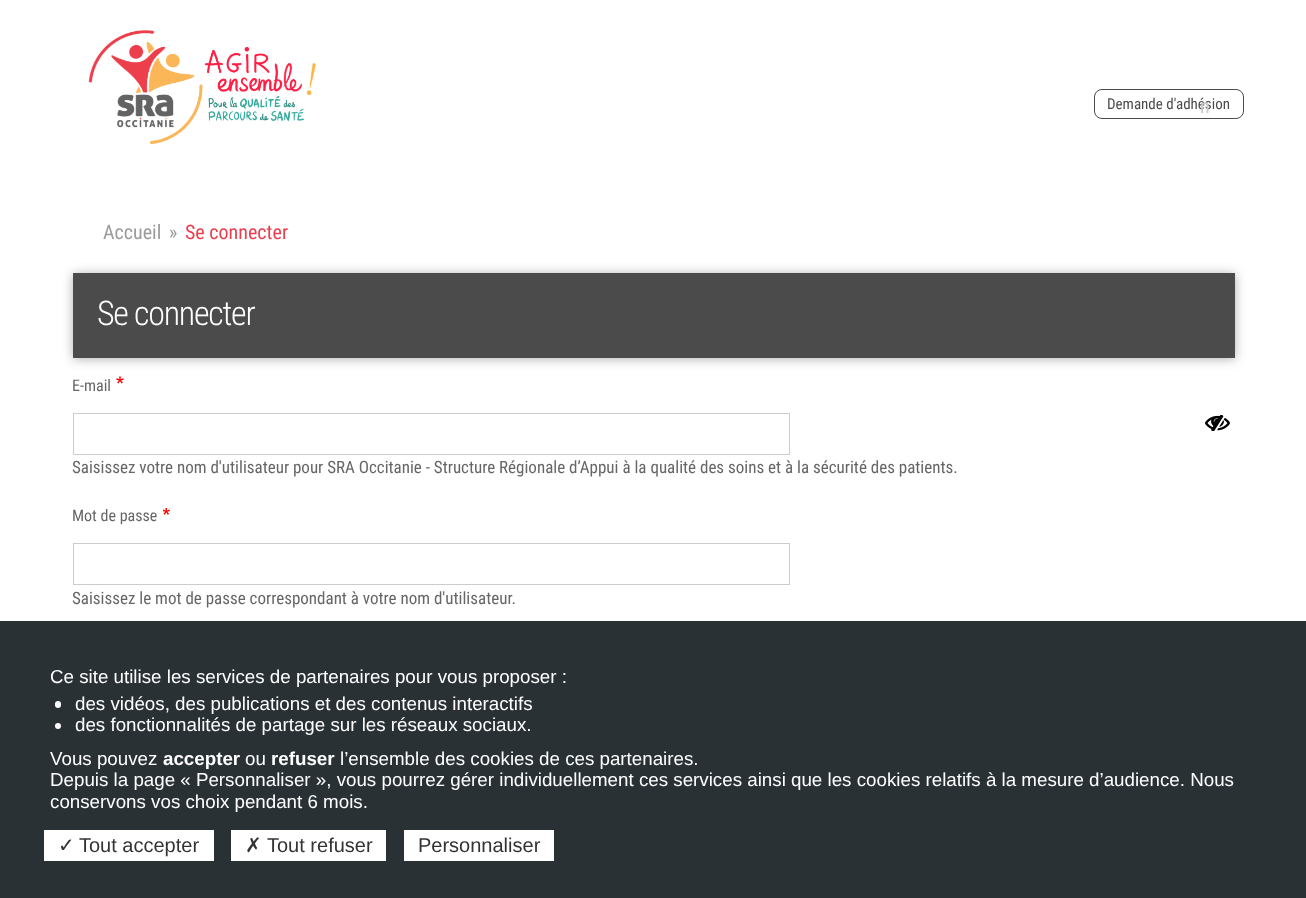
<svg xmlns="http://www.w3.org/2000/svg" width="1306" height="898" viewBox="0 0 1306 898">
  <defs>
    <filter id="blur1" x="-50%" y="-200%" width="200%" height="500%"><feGaussianBlur stdDeviation="5.5"/></filter>
  </defs>
  <rect width="100%" height="100%" fill="#ffffff"/>
  <image x="88" y="30" width="228" height="115" href="img1.png"/>
  <rect x="1094.5" y="89.5" width="149" height="29" rx="7.5" fill="none" stroke="#4b4b4b"/>
  <text x="1107" y="109" font-family="Roboto Condensed" font-size="15" fill="#4b4b4b">Demande d'adhésion</text>
  <text x="1200" y="113" font-family="Roboto Condensed" font-size="20" fill="#cbcbcb">n</text>
  <text x="103" y="239" font-family="Roboto Condensed" font-size="20" fill="#9b9b9b">Accueil</text>
  <text x="169" y="239" font-family="Roboto Condensed" font-size="20" fill="#9b9b9b">»</text>
  <text x="185" y="239" font-family="Roboto Condensed" font-size="20" fill="#e83f4f">Se connecter</text>
  <rect x="73" y="274" width="1162" height="85" fill="#646363" fill-opacity="0.51" filter="url(#blur1)"/>
  <rect x="73" y="273" width="1162" height="85" fill="#4b4b4b"/>
  <text x="97" y="325" font-family="Roboto Condensed" font-size="34" font-weight="300" letter-spacing="-1.25" fill="#ffffff">Se connecter</text>
  <text x="72" y="391" font-family="Roboto Condensed" font-size="16" fill="#666666">E-mail</text>
  <image x="116" y="376" width="8" height="8" href="img2.png"/>
  <rect x="73.5" y="413.5" width="716" height="41" fill="none" stroke="#cccccc"/>
  <text x="72" y="473" font-family="Roboto Condensed" font-size="17" fill="#666666">Saisissez votre nom d'utilisateur pour SRA Occitanie - Structure Régionale d’Appui à la qualité des soins et à la sécurité des patients.</text>
  <image x="1205" y="415" width="25" height="16" href="img3.png"/>
  <text x="72" y="521" font-family="Roboto Condensed" font-size="16" fill="#666666">Mot de passe</text>
  <image x="163" y="508" width="7" height="7" href="img4.png"/>
  <rect x="73.5" y="543.5" width="716" height="41" fill="none" stroke="#cccccc"/>
  <text x="72" y="604" font-family="Roboto Condensed" font-size="17" fill="#666666">Saisissez le mot de passe correspondant à votre nom d'utilisateur.</text>
  <rect x="0" y="621" width="1306" height="277" fill="#2a3135"/>
  <text x="50" y="683" font-family="Liberation Sans" font-size="18.75" fill="#ffffff">Ce site utilise les services de partenaires pour vous proposer :</text>
  <rect x="55" y="701" width="6" height="7" rx="3" fill="#ffffff"/>
  <text x="75" y="710" font-family="Liberation Sans" font-size="18.75" fill="#ffffff">des vidéos, des publications et des contenus interactifs</text>
  <circle cx="58" cy="726" r="3" fill="#ffffff"/>
  <text x="75" y="731" font-family="Liberation Sans" font-size="18.75" fill="#ffffff">des fonctionnalités de partage sur les réseaux sociaux.</text>
  <text x="50" y="765" font-family="Liberation Sans" font-size="18.75" fill="#ffffff">Vous pouvez</text>
  <text x="163" y="765" font-family="Liberation Sans" font-size="18.75" font-weight="bold" fill="#ffffff">accepter</text>
  <text x="245" y="765" font-family="Liberation Sans" font-size="18.75" fill="#ffffff">ou</text>
  <text x="271" y="765" font-family="Liberation Sans" font-size="18.75" font-weight="bold" fill="#ffffff">refuser</text>
  <text x="340" y="765" font-family="Liberation Sans" font-size="18.75" fill="#ffffff">l’ensemble des cookies de ces partenaires.</text>
  <text x="50" y="786" font-family="Liberation Sans" font-size="18.75" fill="#ffffff">Depuis la page « Personnaliser », vous pourrez gérer individuellement ces services ainsi que les cookies relatifs à la mesure d’audience. Nous</text>
  <text x="50" y="808" font-family="Liberation Sans" font-size="18.75" fill="#ffffff">conservons vos choix pendant 6 mois.</text>
  <rect x="44" y="830" width="170" height="31" fill="#ffffff"/>
  <text x="58" y="852" font-family="DejaVu Sans" font-size="20" fill="#333333">✓</text>
  <text x="79" y="852" font-family="Liberation Sans" font-size="20" fill="#333333">Tout accepter</text>
  <rect x="231" y="830" width="155" height="31" fill="#ffffff"/>
  <text x="245" y="852" font-family="DejaVu Sans" font-size="20" fill="#333333">✗</text>
  <text x="267" y="852" font-family="Liberation Sans" font-size="20" fill="#333333">Tout refuser</text>
  <rect x="404" y="830" width="150" height="31" fill="#ffffff"/>
  <text x="418" y="852" font-family="Liberation Sans" font-size="20" fill="#333333">Personnaliser</text>
</svg>
